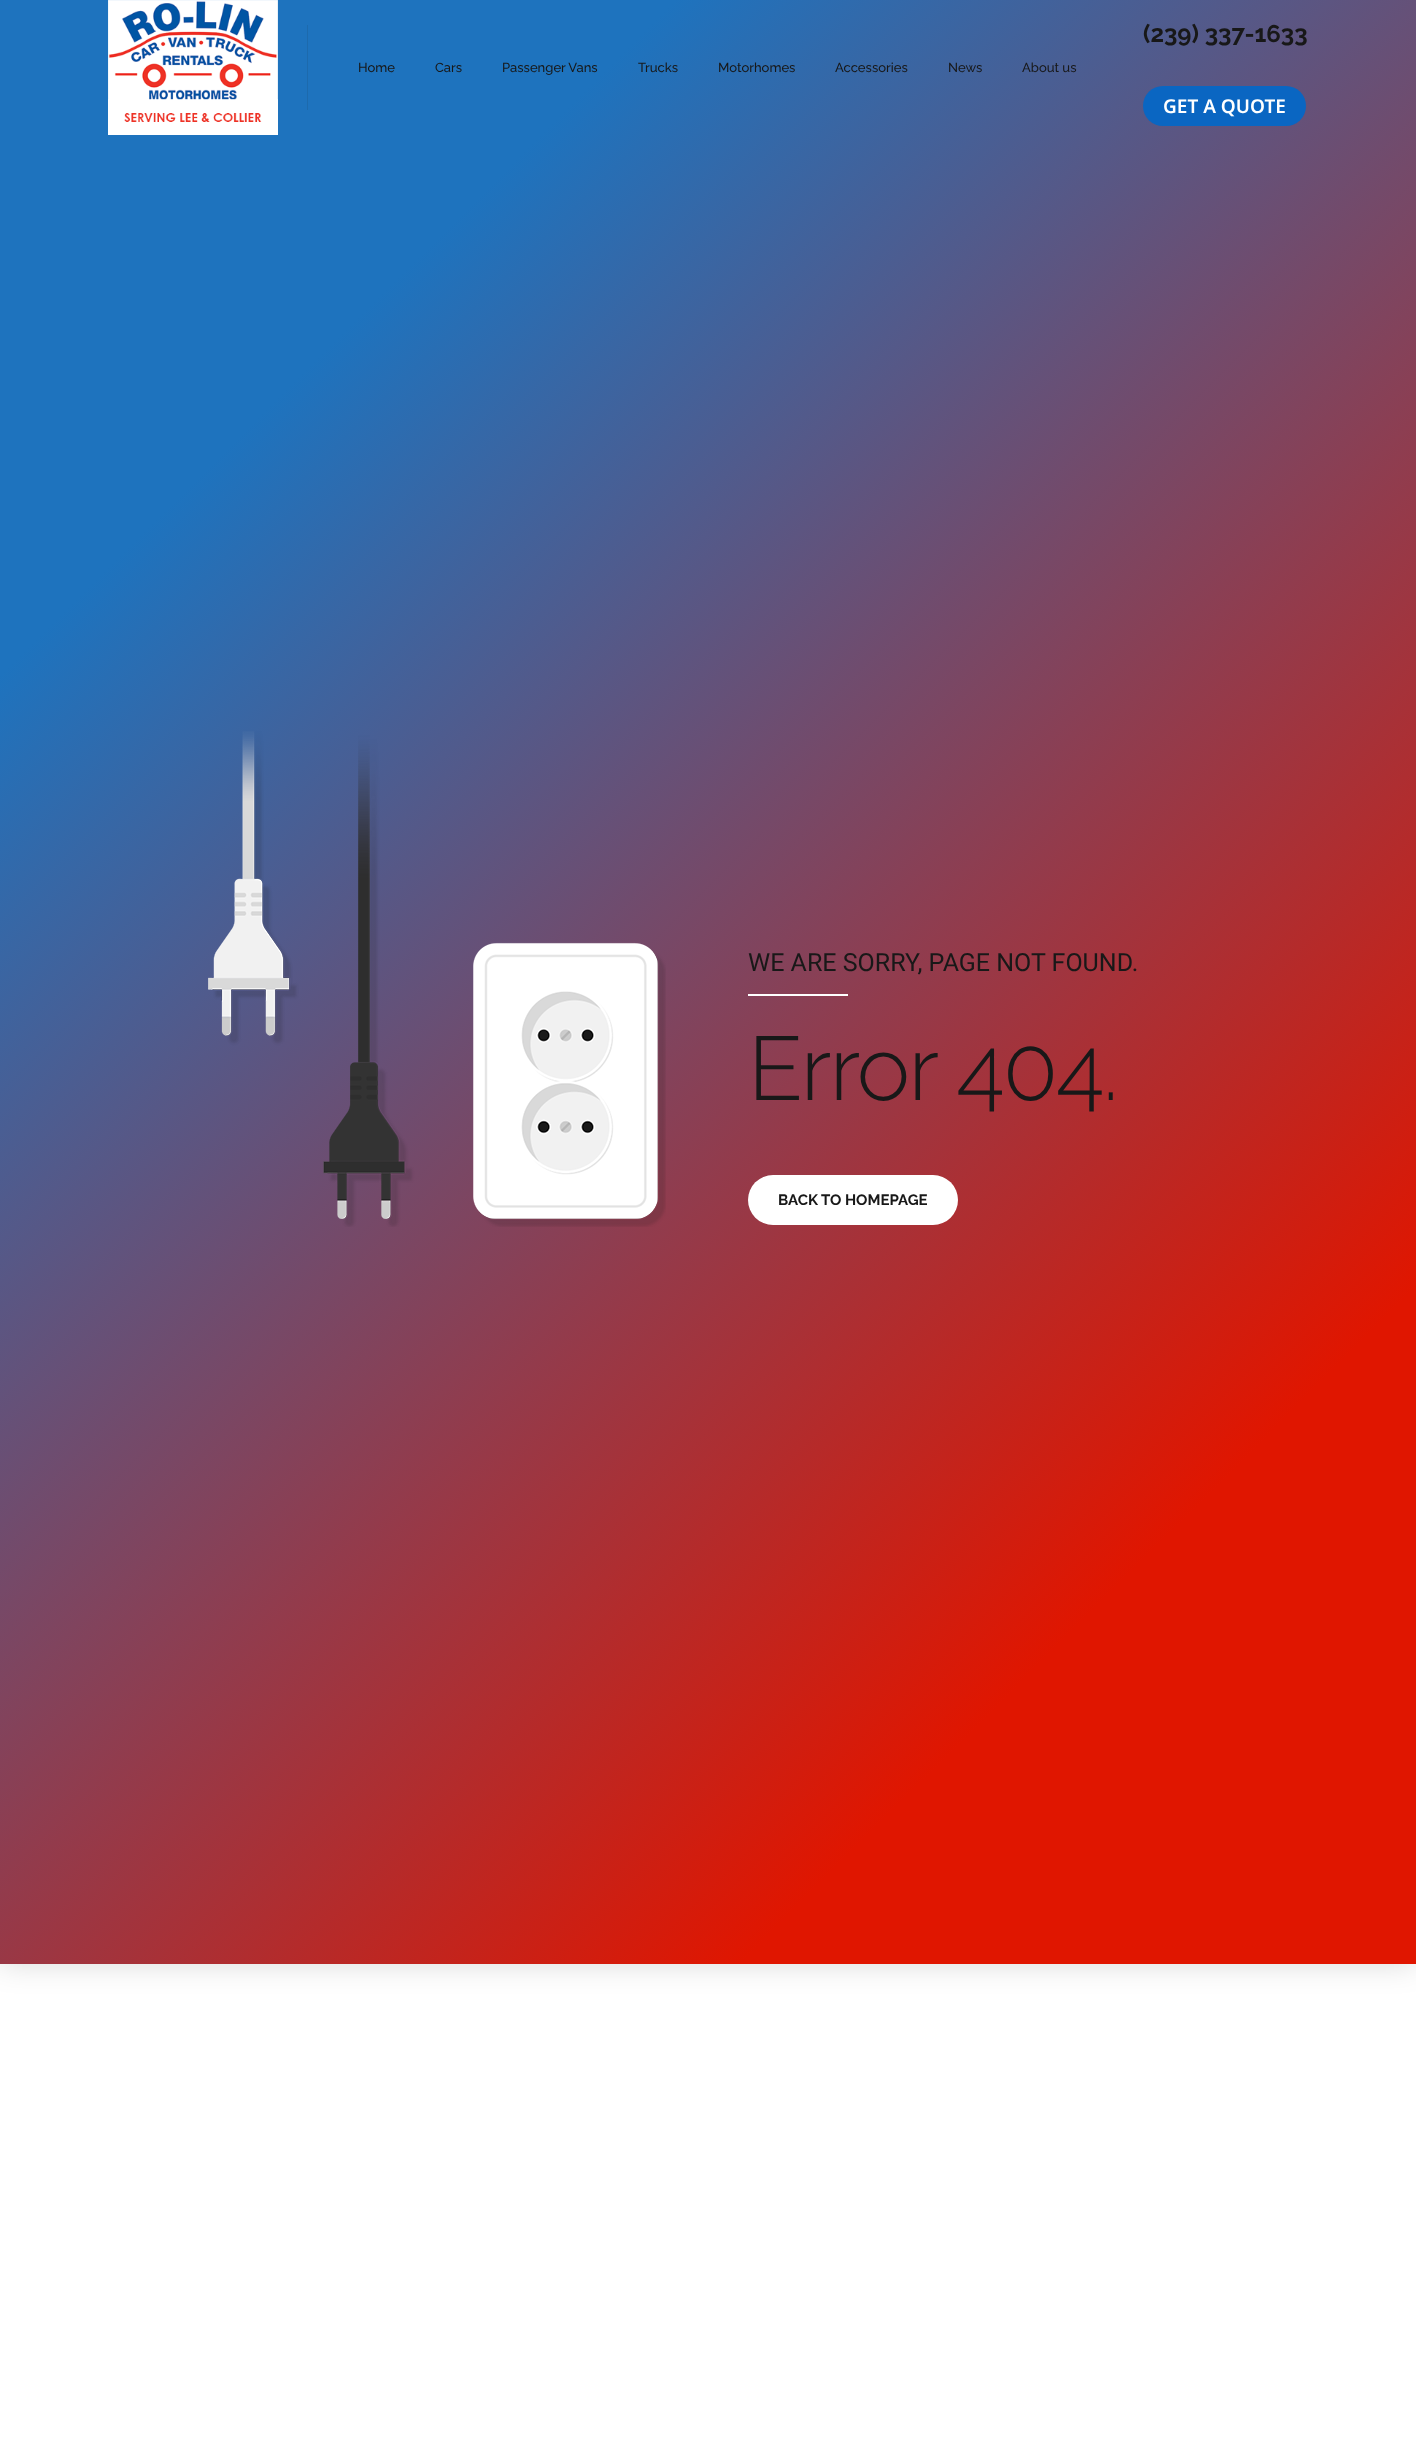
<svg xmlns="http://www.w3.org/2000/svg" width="1416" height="2455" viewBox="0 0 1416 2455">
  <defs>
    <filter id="blur1" x="-50%" y="-200%" width="200%" height="500%"><feGaussianBlur stdDeviation="15"/></filter>
    <linearGradient id="g1" gradientUnits="userSpaceOnUse" x1="-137" y1="137" x2="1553" y2="1827"><stop offset="0.2" stop-color="#1e73be"/><stop offset="0.8" stop-color="#e01600"/></linearGradient>
  </defs>
  <rect width="100%" height="100%" fill="#ffffff"/>
  <rect x="0" y="0" width="1416" height="1964" fill="#000000" fill-opacity="0.15" filter="url(#blur1)"/>
  <rect x="0" y="0" width="1416" height="1964" fill="url(#g1)"/>
  <image x="108" y="0" width="170" height="135" href="img1.png"/>
  <rect x="307" y="25" width="1" height="85" fill="#1d6aad"/>
  <text x="358" y="72" font-family="Raleway" font-size="13" font-weight="500" fill="#181818">Home</text>
  <text x="435" y="72" font-family="Raleway" font-size="13" font-weight="500" fill="#181818">Cars</text>
  <text x="502" y="72" font-family="Raleway" font-size="13" font-weight="500" fill="#181818">Passenger Vans</text>
  <text x="638" y="72" font-family="Raleway" font-size="13" font-weight="500" fill="#181818">Trucks</text>
  <text x="718" y="72" font-family="Raleway" font-size="13" font-weight="500" fill="#181818">Motorhomes</text>
  <text x="835" y="72" font-family="Raleway" font-size="13" font-weight="500" fill="#181818">Accessories</text>
  <text x="948" y="72" font-family="Raleway" font-size="13" font-weight="500" fill="#181818">News</text>
  <text x="1022" y="72" font-family="Raleway" font-size="13" font-weight="500" fill="#181818">About us</text>
  <text x="1143" y="42" font-family="Raleway" font-size="24" font-weight="bold" fill="#181818">(239) 337-1633</text>
  <rect x="1143" y="86" width="163" height="40" rx="20" fill="#0a66c2"/>
  <text x="1163" y="113" font-family="Noto Sans" font-size="19" font-weight="600" fill="#ffffff">GET A QUOTE</text>
  <image x="208" y="731" width="458" height="496" href="img2.png"/>
  <text x="748" y="971" font-family="Roboto" font-size="25" fill="#181818">WE ARE SORRY, PAGE NOT FOUND.</text>
  <rect x="748" y="994" width="100" height="2" fill="#ffffff"/>
  <text x="748" y="1100" font-family="Raleway" font-size="90" font-weight="300" letter-spacing="-1.75" fill="#181818">Error 404.</text>
  <rect x="748" y="1175" width="210" height="50" rx="25" fill="#ffffff"/>
  <text x="778" y="1205" font-family="Raleway" font-size="15" font-weight="bold" fill="#181818">BACK TO HOMEPAGE</text>
</svg>
